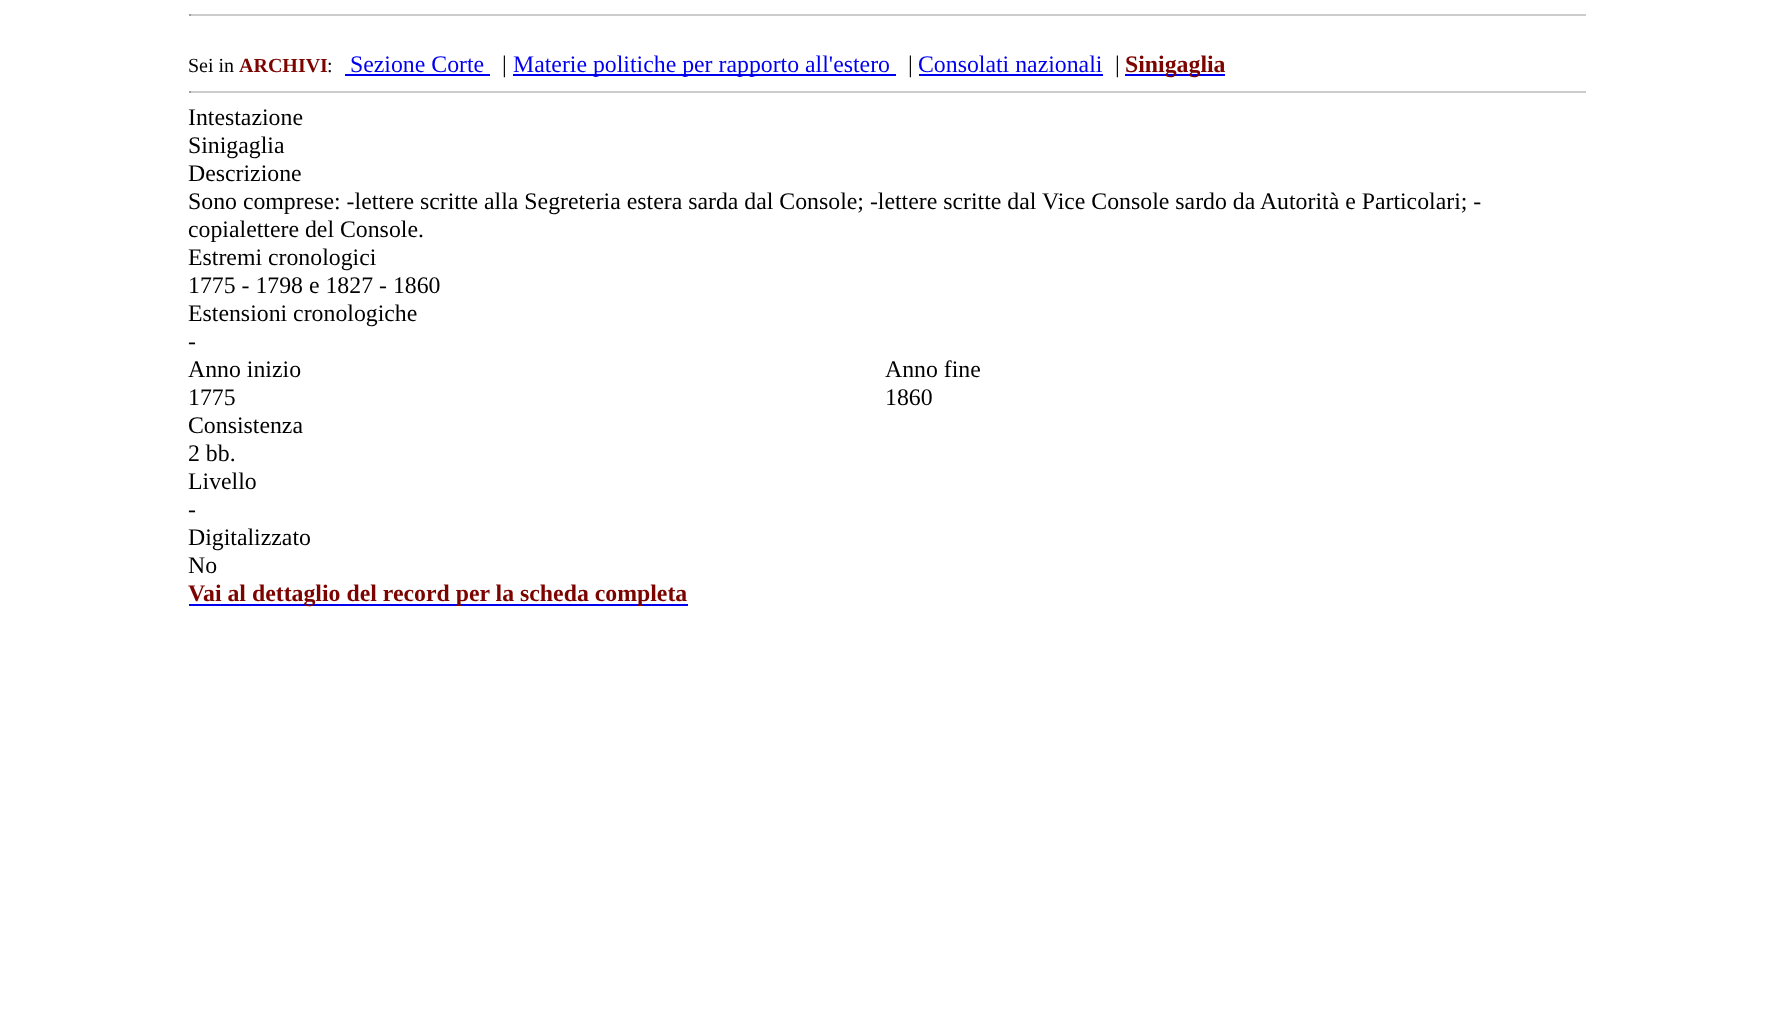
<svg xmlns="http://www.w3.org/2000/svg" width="1768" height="1021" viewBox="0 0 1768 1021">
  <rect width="100%" height="100%" fill="#ffffff"/>
  <rect x="189" y="14" width="1397" height="2" fill="#cccccc"/>
  <rect x="189" y="14" width="2" height="2" fill="#9f9f9f"/>
  <text x="188" y="72" font-family="Liberation Serif" font-size="20" fill="#000000">Sei in</text>
  <text x="239" y="72" font-family="Liberation Serif" font-size="20" font-weight="bold" fill="#7c0400">ARCHIVI</text>
  <text x="327" y="72" font-family="Liberation Serif" font-size="20" fill="#000000">:</text>
  <text x="350" y="72" font-family="Liberation Serif" font-size="23.8" fill="#0000ee">Sezione Corte</text>
  <rect x="345" y="74" width="145" height="2" fill="#0000ee"/>
  <text x="502" y="72" font-family="Liberation Serif" font-size="23.8" fill="#000000">|</text>
  <rect x="513" y="74" width="383" height="2" fill="#0000ee"/>
  <text x="513" y="72" font-family="Liberation Serif" font-size="23.8" fill="#0000ee">Materie politiche per rapporto all'estero</text>
  <text x="908" y="72" font-family="Liberation Serif" font-size="23.8" fill="#000000">|</text>
  <text x="918" y="72" font-family="Liberation Serif" font-size="23.8" fill="#0000ee">Consolati nazionali</text>
  <rect x="919" y="74" width="184" height="2" fill="#0000ee"/>
  <text x="1115" y="72" font-family="Liberation Serif" font-size="23.8" fill="#000000">|</text>
  <rect x="1125" y="74" width="100" height="2" fill="#0000ee"/>
  <text x="1125" y="72" font-family="Liberation Serif" font-size="23.8" font-weight="bold" fill="#7c0400">Sinigaglia</text>
  <rect x="189" y="91" width="1397" height="2" fill="#cccccc"/>
  <rect x="189" y="91" width="2" height="2" fill="#9f9f9f"/>
  <text x="188" y="125" font-family="Liberation Serif" font-size="23.8" fill="#000000">Intestazione</text>
  <text x="188" y="153" font-family="Liberation Serif" font-size="23.8" fill="#000000">Sinigaglia</text>
  <text x="188" y="181" font-family="Liberation Serif" font-size="23.8" fill="#000000">Descrizione</text>
  <text x="188" y="209" font-family="Liberation Serif" font-size="23.8" fill="#000000">Sono comprese: -lettere scritte alla Segreteria estera sarda dal Console; -lettere scritte dal Vice Console sardo da Autorità e Particolari; -</text>
  <text x="188" y="237" font-family="Liberation Serif" font-size="23.8" fill="#000000">copialettere del Console.</text>
  <text x="188" y="265" font-family="Liberation Serif" font-size="23.8" fill="#000000">Estremi cronologici</text>
  <text x="188" y="293" font-family="Liberation Serif" font-size="23.8" fill="#000000">1775 - 1798 e 1827 - 1860</text>
  <text x="188" y="321" font-family="Liberation Serif" font-size="23.8" fill="#000000">Estensioni cronologiche</text>
  <text x="188" y="349" font-family="Liberation Serif" font-size="23.8" fill="#000000">-</text>
  <text x="188" y="377" font-family="Liberation Serif" font-size="23.8" fill="#000000">Anno inizio</text>
  <text x="188" y="405" font-family="Liberation Serif" font-size="23.8" fill="#000000">1775</text>
  <text x="885" y="377" font-family="Liberation Serif" font-size="23.8" fill="#000000">Anno fine</text>
  <text x="885" y="405" font-family="Liberation Serif" font-size="23.8" fill="#000000">1860</text>
  <text x="188" y="433" font-family="Liberation Serif" font-size="23.8" fill="#000000">Consistenza</text>
  <text x="188" y="461" font-family="Liberation Serif" font-size="23.8" fill="#000000">2 bb.</text>
  <text x="188" y="489" font-family="Liberation Serif" font-size="23.8" fill="#000000">Livello</text>
  <text x="188" y="517" font-family="Liberation Serif" font-size="23.8" fill="#000000">-</text>
  <text x="188" y="545" font-family="Liberation Serif" font-size="23.8" fill="#000000">Digitalizzato</text>
  <text x="188" y="573" font-family="Liberation Serif" font-size="23.8" fill="#000000">No</text>
  <rect x="189" y="604" width="499" height="2" fill="#0000ee"/>
  <text x="188" y="601" font-family="Liberation Serif" font-size="23.8" font-weight="bold" fill="#7c0400">Vai al dettaglio del record per la scheda completa</text>
</svg>
